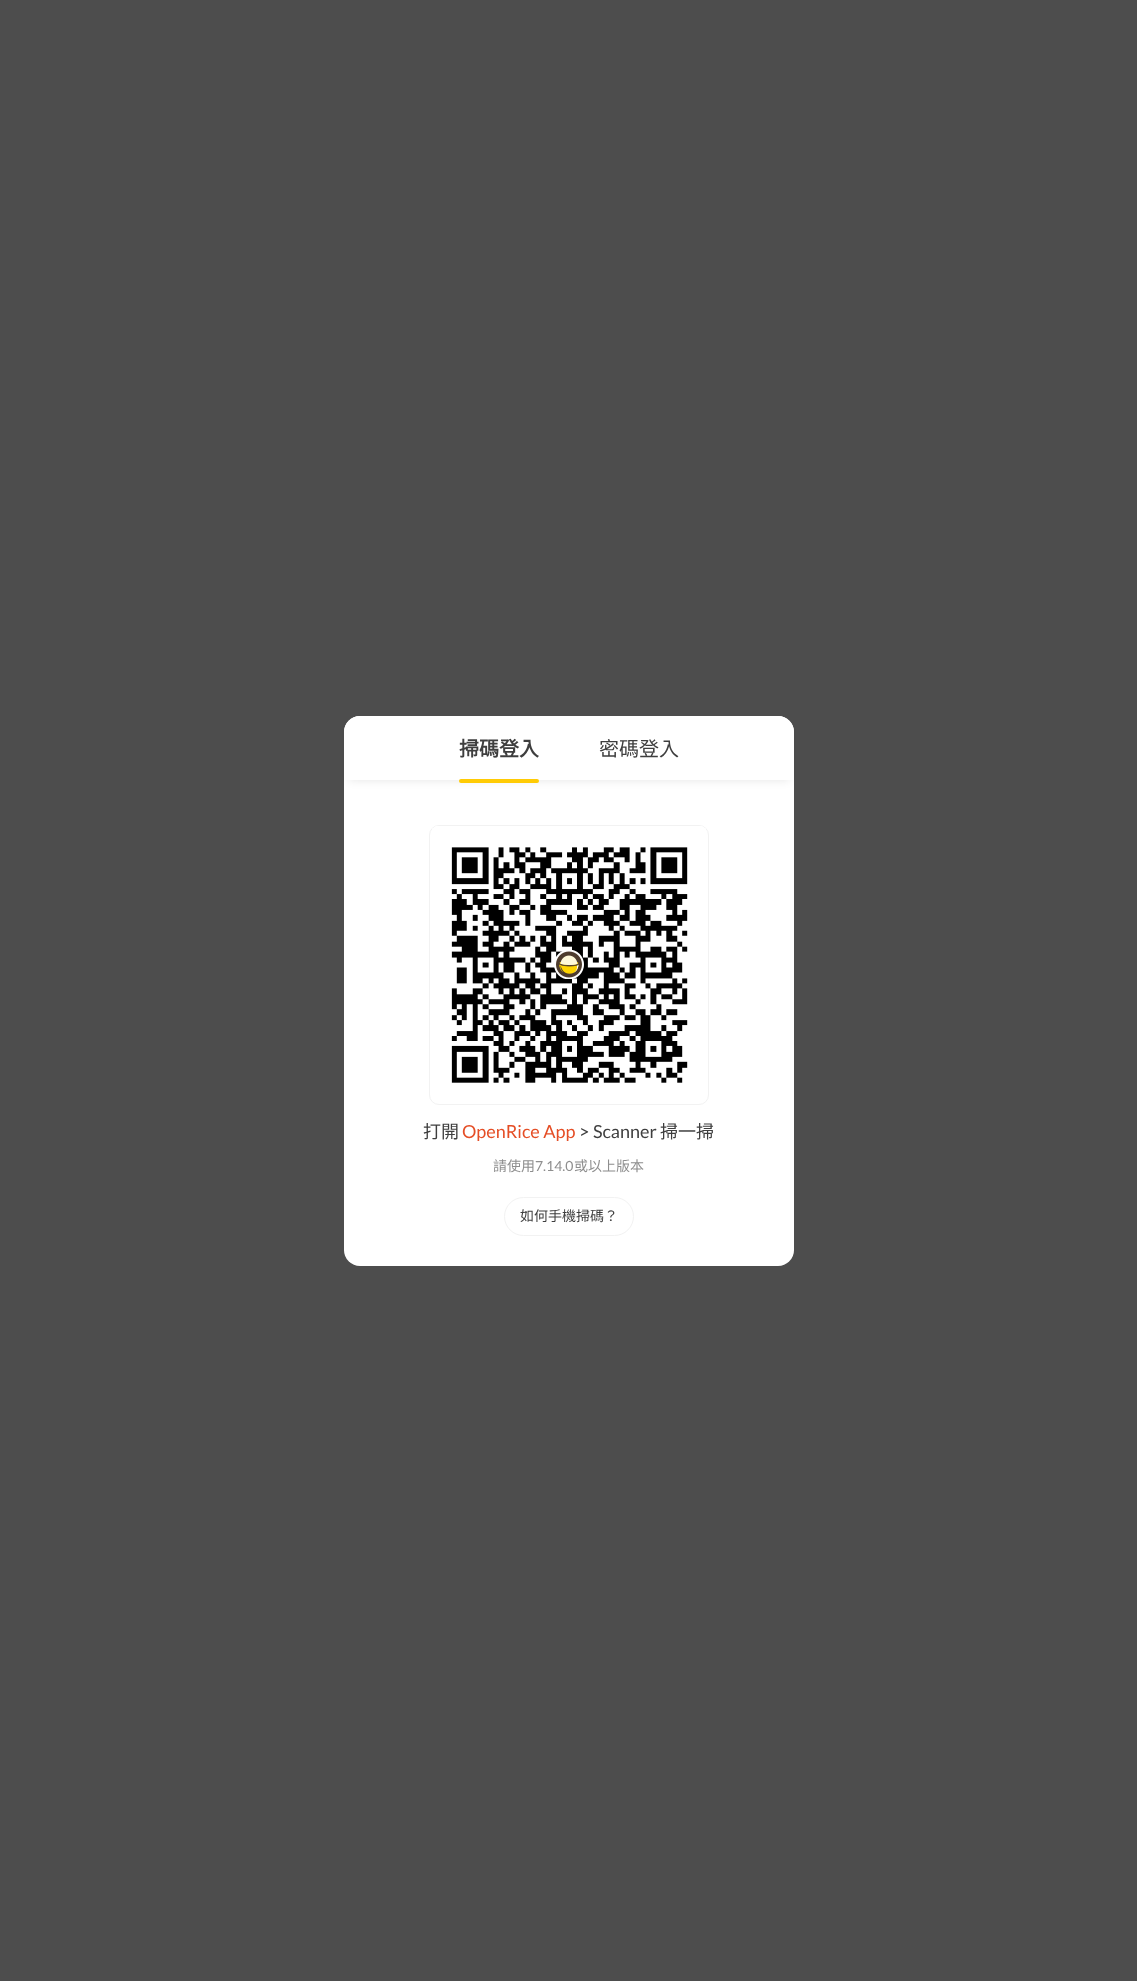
<svg xmlns="http://www.w3.org/2000/svg" width="1137" height="1981" viewBox="0 0 1137 1981">
  <defs>
    <filter id="blur1" x="-50%" y="-200%" width="200%" height="500%"><feGaussianBlur stdDeviation="5"/></filter>
  </defs>
  <rect width="100%" height="100%" fill="#4d4d4d"/>
  <rect x="344" y="716" width="450" height="550" rx="16" fill="#ffffff"/>
  <rect x="349" y="726" width="440" height="54" fill="#000000" fill-opacity="0.1" filter="url(#blur1)"/>
  <path d="M360 716H778C787 716 794 723 794 732V780H344V732C344 723 351 716 360 716Z" fill="#ffffff"/>
  <text x="459" y="756" font-family="Noto Sans CJK HK" font-size="20" font-weight="bold" fill="#3e3e3e">掃碼登入</text>
  <rect x="459" y="779" width="80" height="4" rx="2" fill="#ffcb05"/>
  <text x="599" y="756" font-family="Noto Sans CJK HK" font-size="20" fill="#3e3e3e">密碼登入</text>
  <rect x="429.5" y="825.5" width="279" height="279" rx="9.5" fill="none" stroke="#f2f2f2"/>
  <image x="432" y="826" width="274" height="257" href="img1.png"/>
  <image x="554" y="950" width="30" height="29" href="img2.png"/>
  <text x="423" y="1138" font-family="Noto Sans CJK HK" font-size="18" fill="#3e3e3e">打開</text>
  <text x="462" y="1138" font-family="Lato" font-size="18" fill="#e54e26">OpenRice App</text>
  <text x="579" y="1138" font-family="Lato" font-size="18" fill="#3e3e3e">&gt; Scanner</text>
  <text x="660" y="1138" font-family="Noto Sans CJK HK" font-size="18" fill="#3e3e3e">掃一掃</text>
  <text x="493" y="1171" font-family="Noto Sans CJK HK" font-size="14" fill="#8e8e8e">請使用</text>
  <text x="535" y="1171" font-family="Lato" font-size="14" fill="#8e8e8e">7.14.0</text>
  <text x="574" y="1171" font-family="Noto Sans CJK HK" font-size="14" fill="#8e8e8e">或以上版本</text>
  <rect x="504.5" y="1197.5" width="129" height="38" rx="19" fill="none" stroke="#f2f2f2"/>
  <text x="520" y="1221" font-family="Noto Sans CJK HK" font-size="14" fill="#3e3e3e">如何手機掃碼？</text>
</svg>
